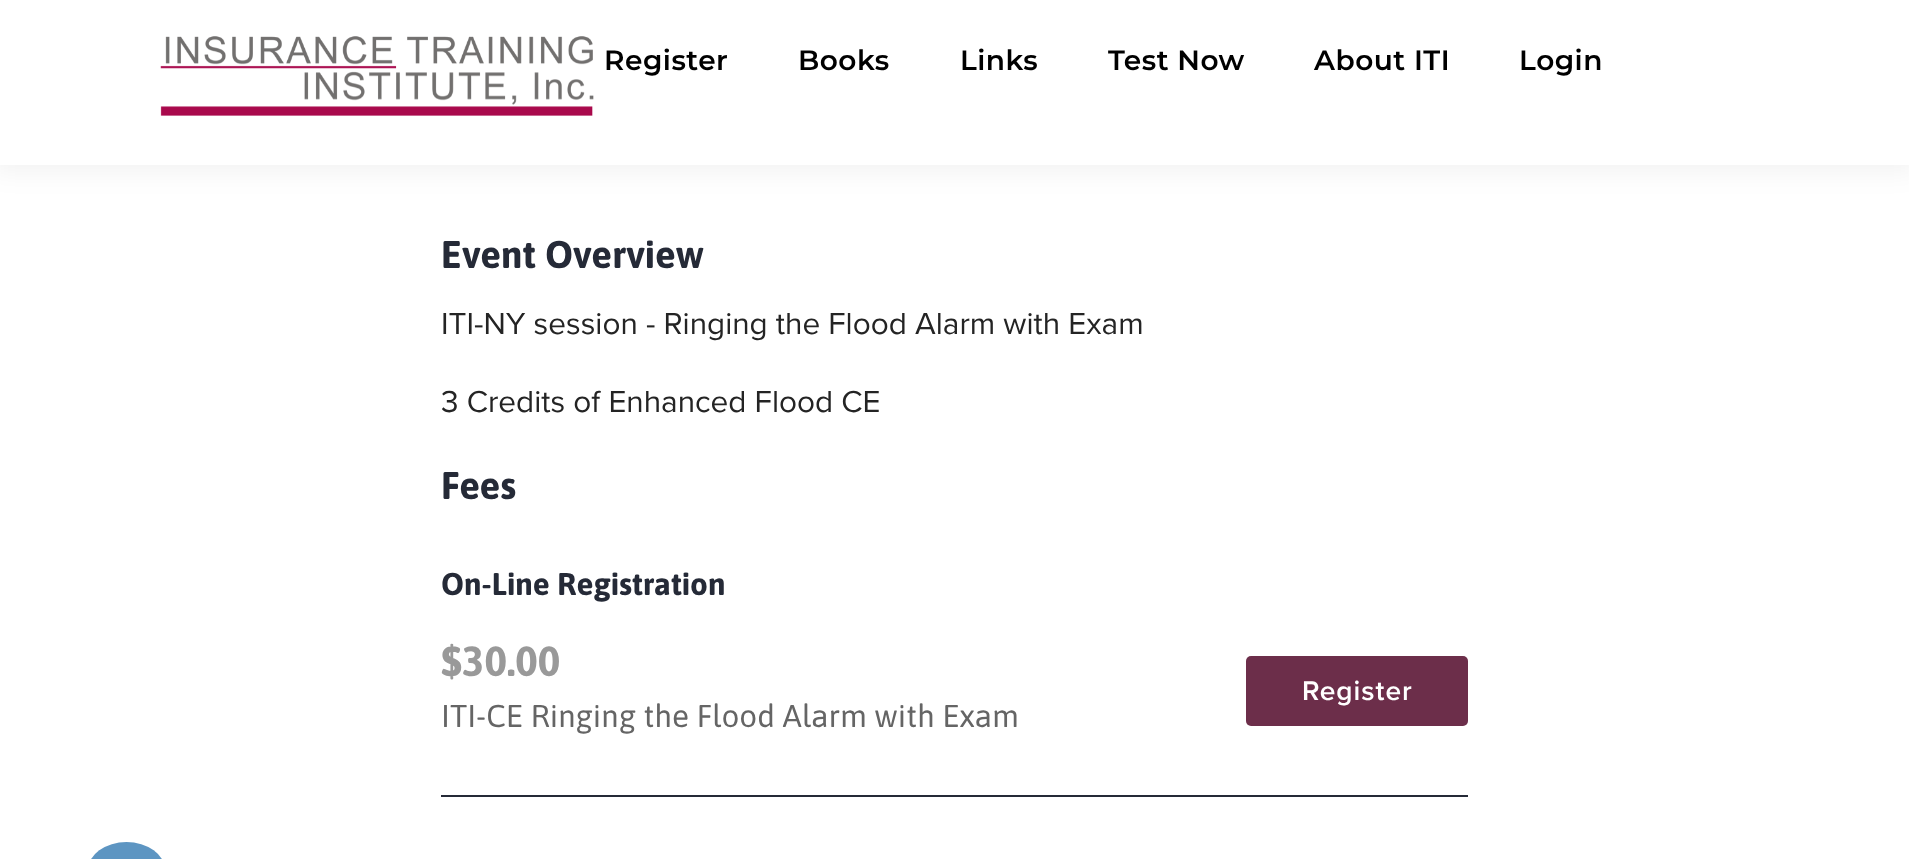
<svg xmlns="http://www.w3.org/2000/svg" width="1909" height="859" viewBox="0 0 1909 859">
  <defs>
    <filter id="blur1" x="-50%" y="-200%" width="200%" height="500%"><feGaussianBlur stdDeviation="13"/></filter>
  </defs>
  <rect width="100%" height="100%" fill="#ffffff"/>
  <rect x="-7" y="-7" width="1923" height="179" fill="#222324" fill-opacity="0.05" filter="url(#blur1)"/>
  <rect x="0" y="0" width="1909" height="165" fill="#ffffff"/>
  <image x="160" y="36" width="434" height="80" href="img1.png"/>
  <text x="604" y="70" font-family="Montserrat" font-size="28" font-weight="600" letter-spacing="0.5" fill="#000000">Register</text>
  <text x="798" y="70" font-family="Montserrat" font-size="28" font-weight="600" letter-spacing="0.5" fill="#000000">Books</text>
  <text x="960" y="70" font-family="Montserrat" font-size="28" font-weight="600" letter-spacing="0.5" fill="#000000">Links</text>
  <text x="1108" y="70" font-family="Montserrat" font-size="28" font-weight="600" letter-spacing="0.5" fill="#000000">Test Now</text>
  <text x="1314" y="70" font-family="Montserrat" font-size="28" font-weight="600" letter-spacing="0.5" fill="#000000">About ITI</text>
  <text x="1519" y="70" font-family="Montserrat" font-size="28" font-weight="600" letter-spacing="0.5" fill="#000000">Login</text>
  <text x="441" y="268" font-family="Asap" font-size="38.5" font-weight="bold" fill="#252a37">Event Overview</text>
  <text x="441" y="334" font-family="Proxima Nova" font-size="31.5" fill="#242424">ITI-NY session - Ringing the Flood Alarm with Exam</text>
  <text x="441" y="412" font-family="Proxima Nova" font-size="31.5" fill="#242424">3 Credits of Enhanced Flood CE</text>
  <text x="441" y="499" font-family="Asap" font-size="38.5" font-weight="bold" fill="#252a37">Fees</text>
  <text x="441" y="595" font-family="Asap" font-size="31.5" font-weight="bold" fill="#252a37">On-Line Registration</text>
  <text x="441" y="676" font-family="Asap" font-size="42" font-weight="bold" fill="#999999">$30.00</text>
  <text x="441" y="727" font-family="Asap" font-size="31.5" fill="#656565">ITI-CE Ringing the Flood Alarm with Exam</text>
  <rect x="1246" y="656" width="222" height="70" rx="5" fill="#6c2e4a"/>
  <text x="1302" y="700" font-family="Proxima Nova" font-size="28" font-weight="600" letter-spacing="1" fill="#ffffff">Register</text>
  <rect x="441" y="795" width="1027" height="2" fill="#252a37"/>
  <rect x="88" y="842" width="77" height="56" rx="38.5" fill="#5d95c2"/>
</svg>
